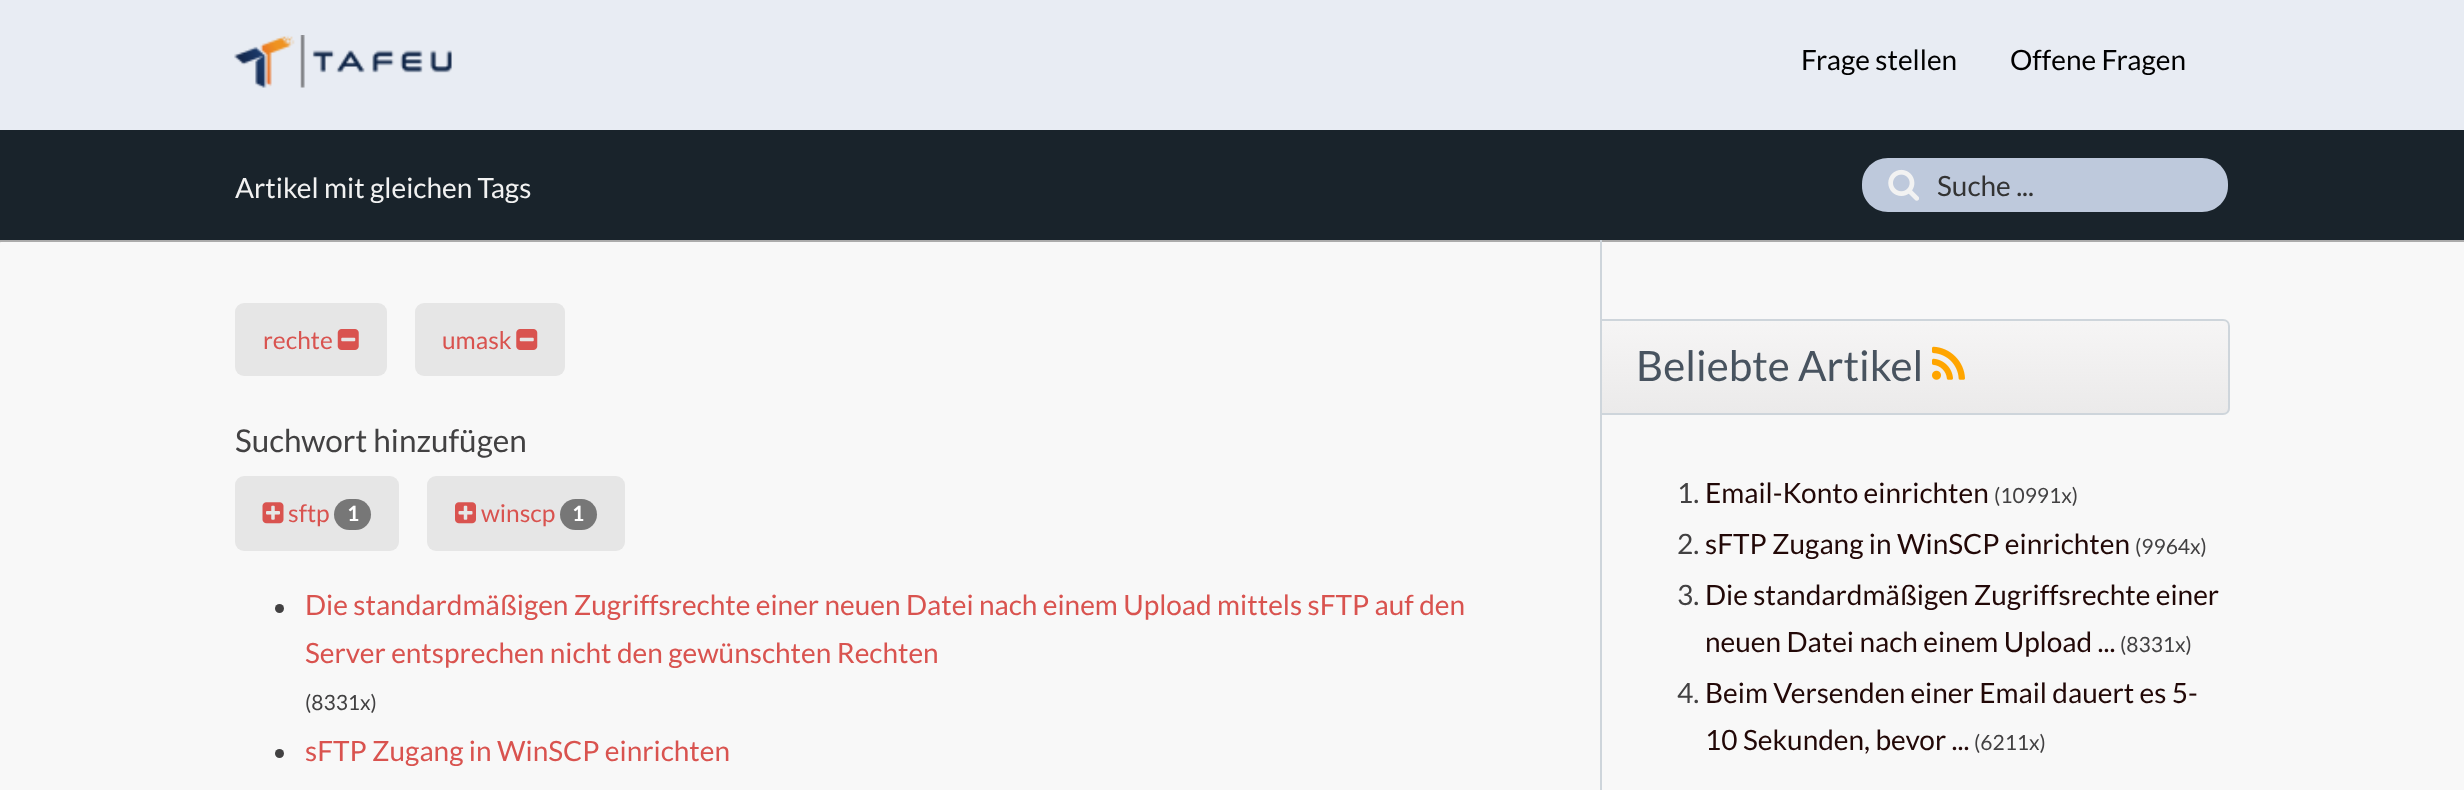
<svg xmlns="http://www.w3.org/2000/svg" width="2464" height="790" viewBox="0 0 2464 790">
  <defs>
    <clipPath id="clip1"><rect x="0" y="240" width="2464" height="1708"/></clipPath>
    <clipPath id="clip2"><path d="M1600 319H2223C2227 319 2230 322 2230 326V408C2230 412 2227 415 2223 415H1600Z"/></clipPath>
    <linearGradient id="g1" gradientUnits="userSpaceOnUse" x1="1915" y1="320" x2="1915" y2="413"><stop offset="0" stop-color="#f6f5f5"/><stop offset="1" stop-color="#ebeaea"/></linearGradient>
  </defs>
  <rect width="100%" height="100%" fill="#e8ecf3"/>
  <image x="234" y="35" width="218" height="53" href="img1.png"/>
  <text x="1801" y="70" font-family="Lato" font-size="28" fill="#000000">Frage stellen</text>
  <text x="2010" y="70" font-family="Lato" font-size="28" fill="#000000">Offene Fragen</text>
  <rect x="0" y="130" width="2464" height="110" fill="#19232b"/>
  <text x="235" y="198" font-family="Lato" font-size="28" fill="#f2f2f2">Artikel mit gleichen Tags</text>
  <path d="M1888 158H1929V212H1888C1873.5 212 1862 200.5 1862 186V184C1862 169.5 1873.5 158 1888 158Z" fill="#bec9dc"/>
  <image x="1888" y="169" width="31" height="32" href="img2.png"/>
  <path d="M1927 158H2202C2216.5 158 2228 169.5 2228 184V186C2228 200.5 2216.5 212 2202 212H1927Z" fill="#bec9dc"/>
  <text x="1937" y="196" font-family="Lato" font-size="28" fill="#333333">Suche ...</text>
  <rect x="0" y="242" width="2464" height="548" fill="#f8f8f8"/>
  <g clip-path="url(#clip1)">
    <path d="M-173 66H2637V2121H-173ZM2 242H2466C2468 242 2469 243 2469 245V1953C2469 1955 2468 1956 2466 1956H2C0 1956-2 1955-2 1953V245C-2 243 0 242 2 242Z" fill="#ababab" fill-rule="evenodd"/>
  </g>
  <rect x="235" y="303" width="152" height="73" rx="9" fill="#e6e6e6"/>
  <text x="263" y="349" font-family="Lato" font-size="24.5" fill="#d9534f">rechte</text>
  <image x="337" y="329" width="22" height="21" href="img3.png"/>
  <rect x="415" y="303" width="150" height="73" rx="9" fill="#e6e6e6"/>
  <text x="442" y="349" font-family="Lato" font-size="24.5" fill="#d9534f">umask</text>
  <image x="516" y="329" width="22" height="21" href="img4.png"/>
  <text x="235" y="452" font-family="Lato" font-size="31.5" fill="#424142">Suchwort hinzufügen</text>
  <rect x="235" y="476" width="164" height="75" rx="9" fill="#e6e6e6"/>
  <image x="262" y="502" width="22" height="22" href="img5.png"/>
  <text x="288" y="522" font-family="Lato" font-size="24.5" fill="#d9534f">sftp</text>
  <rect x="334" y="499" width="37" height="31" rx="15.5" fill="#777777"/>
  <text x="347" y="521" font-family="Lato" font-size="21" font-weight="bold" fill="#ffffff">1</text>
  <rect x="427" y="476" width="198" height="75" rx="9" fill="#e6e6e6"/>
  <image x="455" y="502" width="21" height="22" href="img6.png"/>
  <text x="481" y="522" font-family="Lato" font-size="24.5" fill="#d9534f">winscp</text>
  <rect x="560" y="499" width="37" height="31" rx="15.5" fill="#777777"/>
  <text x="572" y="521" font-family="Lato" font-size="21" font-weight="bold" fill="#ffffff">1</text>
  <circle cx="279.5" cy="608.5" r="4.5" fill="#424142"/>
  <text x="305" y="615" font-family="Lato" font-size="28" fill="#d9534f">Die standardmäßigen Zugriffsrechte einer neuen Datei nach einem Upload mittels sFTP auf den</text>
  <text x="305" y="663" font-family="Lato" font-size="28" fill="#d9534f">Server entsprechen nicht den gewünschten Rechten</text>
  <text x="305" y="710" font-family="Lato" font-size="21" fill="#424142">(8331x)</text>
  <circle cx="279.5" cy="753.5" r="4.5" fill="#424142"/>
  <text x="305" y="761" font-family="Lato" font-size="28" fill="#d9534f">sFTP Zugang in WinSCP einrichten</text>
  <rect x="1600" y="240" width="2" height="550" fill="#ced5db"/>
  <g clip-path="url(#clip2)">
    <rect x="1602" y="320" width="628" height="93" fill="url(#g1)"/>
  </g>
  <path d="M1601 320H2223C2226.5 320 2229 322.5 2229 326V408C2229 411.5 2226.5 414 2223 414H1601Z" fill="none" stroke="#ced5db" stroke-width="2"/>
  <text x="1636" y="381" font-family="Lato" font-size="42" fill="#48535f">Beliebte Artikel</text>
  <image x="1932" y="346" width="33" height="34" href="img7.png"/>
  <text x="1677" y="503" font-family="Lato" font-size="28" fill="#424142">1.</text>
  <text x="1705" y="503" font-family="Lato" font-size="28" fill="#220807">Email-Konto einrichten</text>
  <text x="1994" y="503" font-family="Lato" font-size="21" fill="#424142">(10991x)</text>
  <text x="1677" y="554" font-family="Lato" font-size="28" fill="#424142">2.</text>
  <text x="1705" y="554" font-family="Lato" font-size="28" fill="#220807">sFTP Zugang in WinSCP einrichten</text>
  <text x="2135" y="554" font-family="Lato" font-size="21" fill="#424142">(9964x)</text>
  <text x="1677" y="605" font-family="Lato" font-size="28" fill="#424142">3.</text>
  <text x="1705" y="605" font-family="Lato" font-size="28" fill="#220807">Die standardmäßigen Zugriffsrechte einer</text>
  <text x="1705" y="652" font-family="Lato" font-size="28" fill="#220807">neuen Datei nach einem Upload ...</text>
  <text x="2120" y="652" font-family="Lato" font-size="21" fill="#424142">(8331x)</text>
  <text x="1677" y="703" font-family="Lato" font-size="28" fill="#424142">4.</text>
  <text x="1705" y="703" font-family="Lato" font-size="28" fill="#220807">Beim Versenden einer Email dauert es 5-</text>
  <text x="1705" y="750" font-family="Lato" font-size="28" fill="#220807">10 Sekunden, bevor ...</text>
  <text x="1974" y="750" font-family="Lato" font-size="21" fill="#424142">(6211x)</text>
</svg>
